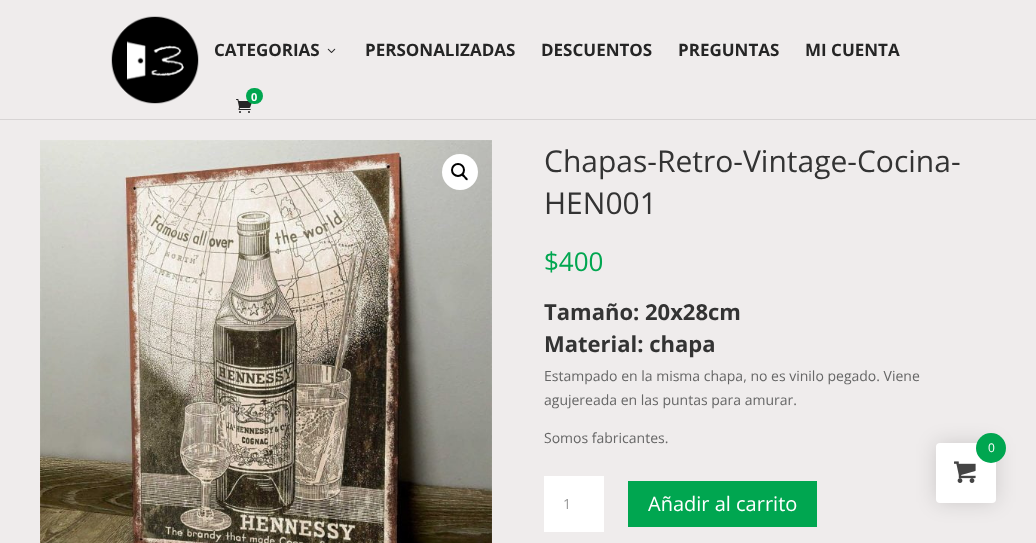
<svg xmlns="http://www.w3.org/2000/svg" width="1036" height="543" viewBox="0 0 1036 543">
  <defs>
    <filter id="blur1" x="-50%" y="-200%" width="200%" height="500%"><feGaussianBlur stdDeviation="10"/></filter>
  </defs>
  <rect width="100%" height="100%" fill="#efecec"/>
  <rect x="0" y="119" width="1036" height="1" fill="#d7d4d4"/>
  <image x="111" y="16" width="88" height="88" href="img1.png"/>
  <text x="214" y="56" font-family="Open Sans" font-size="17" font-weight="bold" fill="#252525">CATEGORIAS</text>
  <image x="327" y="48" width="9" height="5" href="img2.png"/>
  <text x="365" y="56" font-family="Open Sans" font-size="17" font-weight="bold" fill="#252525">PERSONALIZADAS</text>
  <text x="541" y="56" font-family="Open Sans" font-size="17" font-weight="bold" fill="#252525">DESCUENTOS</text>
  <text x="678" y="56" font-family="Open Sans" font-size="17" font-weight="bold" fill="#252525">PREGUNTAS</text>
  <text x="805" y="56" font-family="Open Sans" font-size="17" font-weight="bold" fill="#252525">MI CUENTA</text>
  <image x="236" y="99" width="16" height="14" href="img3.png"/>
  <rect x="246" y="88" width="17" height="16" rx="8" fill="#00a650"/>
  <text x="251" y="101" font-family="Open Sans" font-size="11" font-weight="bold" fill="#ffffff">0</text>
  <image x="40" y="140" width="452" height="403" href="img4.png"/>
  <circle cx="460" cy="172" r="18" fill="#ffffff"/>
  <circle cx="458" cy="170" r="6" fill="none" stroke="#000000" stroke-width="2"/>
  <path d="M462 174C463 173 465 175.5 465.5 176.5C466 177 468.5 178.5 467.5 180C466.5 181 464.5 178.5 464 177.5C463.5 177 460.5 175.5 462 174Z" fill="#000000"/>
  <text x="544" y="172" font-family="Open Sans" font-size="30" fill="#333333">Chapas-Retro-Vintage-Cocina-</text>
  <text x="544" y="214" font-family="Open Sans" font-size="30" fill="#333333">HEN001</text>
  <text x="544" y="271" font-family="Open Sans" font-size="26" fill="#00a650">$400</text>
  <text x="544" y="320" font-family="Open Sans" font-size="22" font-weight="bold" fill="#333333">Tamaño: 20x28cm</text>
  <text x="544" y="352" font-family="Open Sans" font-size="22" font-weight="bold" fill="#333333">Material: chapa</text>
  <text x="544" y="381" font-family="Open Sans" font-size="14" fill="#666666">Estampado en la misma chapa, no es vinilo pegado. Viene</text>
  <text x="544" y="405" font-family="Open Sans" font-size="14" fill="#666666">agujereada en las puntas para amurar.</text>
  <text x="544" y="443" font-family="Open Sans" font-size="14" fill="#666666">Somos fabricantes.</text>
  <rect x="544" y="476" width="60" height="56" fill="#ffffff"/>
  <text x="563" y="509" font-family="Open Sans" font-size="14" fill="#999999">1</text>
  <rect x="628" y="481" width="189" height="46" fill="#00a650"/>
  <text x="648" y="511" font-family="Open Sans" font-size="20" fill="#ffffff">Añadir al carrito</text>
  <rect x="936" y="443" width="60" height="60" rx="4" fill="#000000" fill-opacity="0.15" filter="url(#blur1)"/>
  <rect x="936" y="443" width="60" height="60" rx="4" fill="#ffffff"/>
  <circle cx="991" cy="448" r="15" fill="#00a650"/>
  <text x="988" y="452" font-family="Open Sans" font-size="12" fill="#ffffff">0</text>
  <image x="954" y="461" width="22" height="22" href="img5.png"/>
</svg>
